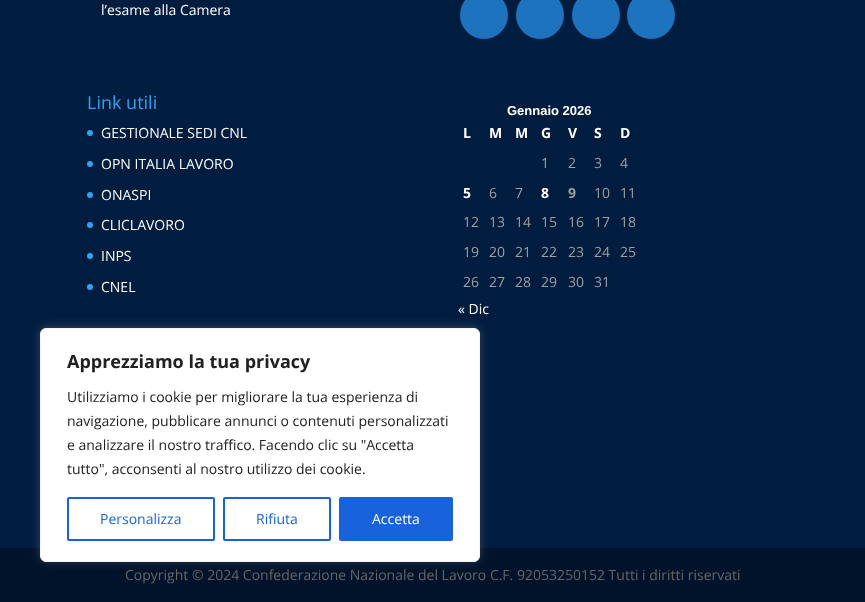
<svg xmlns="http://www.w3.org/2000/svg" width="865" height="602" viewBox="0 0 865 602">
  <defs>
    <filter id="blur1" x="-50%" y="-200%" width="200%" height="500%"><feGaussianBlur stdDeviation="5"/></filter>
  </defs>
  <rect width="100%" height="100%" fill="#001c3f"/>
  <text x="101" y="15" font-family="Open Sans" font-size="14" fill="#ffffff">l’esame alla Camera</text>
  <circle cx="484" cy="15" r="24" fill="#1e73be"/>
  <circle cx="540" cy="15" r="24" fill="#1e73be"/>
  <circle cx="596" cy="15" r="24" fill="#1e73be"/>
  <circle cx="651" cy="15" r="24" fill="#1e73be"/>
  <text x="87" y="109" font-family="Open Sans" font-size="18" fill="#2ea3f2">Link utili</text>
  <circle cx="90" cy="133" r="3" fill="#2ea3f2"/>
  <text x="101" y="138" font-family="Open Sans" font-size="14" fill="#ffffff">GESTIONALE SEDI CNL</text>
  <circle cx="90" cy="164" r="3" fill="#2ea3f2"/>
  <text x="101" y="169" font-family="Open Sans" font-size="14" fill="#ffffff">OPN ITALIA LAVORO</text>
  <circle cx="90" cy="195" r="3" fill="#2ea3f2"/>
  <text x="101" y="200" font-family="Open Sans" font-size="14" fill="#ffffff">ONASPI</text>
  <circle cx="90" cy="225" r="3" fill="#2ea3f2"/>
  <text x="101" y="230" font-family="Open Sans" font-size="14" fill="#ffffff">CLICLAVORO</text>
  <circle cx="90" cy="256" r="3" fill="#2ea3f2"/>
  <text x="101" y="261" font-family="Open Sans" font-size="14" fill="#ffffff">INPS</text>
  <circle cx="90" cy="287" r="3" fill="#2ea3f2"/>
  <text x="101" y="292" font-family="Open Sans" font-size="14" fill="#ffffff">CNEL</text>
  <text x="507" y="115" font-family="Liberation Sans" font-size="13" font-weight="bold" fill="#ffffff">Gennaio 2026</text>
  <text x="463" y="138" font-family="Open Sans" font-size="14" font-weight="bold" fill="#ffffff">L</text>
  <text x="489" y="138" font-family="Open Sans" font-size="14" font-weight="bold" fill="#ffffff">M</text>
  <text x="515" y="138" font-family="Open Sans" font-size="14" font-weight="bold" fill="#ffffff">M</text>
  <text x="541" y="138" font-family="Open Sans" font-size="14" font-weight="bold" fill="#ffffff">G</text>
  <text x="568" y="138" font-family="Open Sans" font-size="14" font-weight="bold" fill="#ffffff">V</text>
  <text x="594" y="138" font-family="Open Sans" font-size="14" font-weight="bold" fill="#ffffff">S</text>
  <text x="620" y="138" font-family="Open Sans" font-size="14" font-weight="bold" fill="#ffffff">D</text>
  <text x="541" y="168" font-family="Open Sans" font-size="14" fill="#9f9f9f">1</text>
  <text x="568" y="168" font-family="Open Sans" font-size="14" fill="#9f9f9f">2</text>
  <text x="594" y="168" font-family="Open Sans" font-size="14" fill="#9f9f9f">3</text>
  <text x="620" y="168" font-family="Open Sans" font-size="14" fill="#9f9f9f">4</text>
  <text x="463" y="198" font-family="Open Sans" font-size="14" font-weight="bold" fill="#ffffff">5</text>
  <text x="489" y="198" font-family="Open Sans" font-size="14" fill="#9f9f9f">6</text>
  <text x="515" y="198" font-family="Open Sans" font-size="14" fill="#9f9f9f">7</text>
  <text x="541" y="198" font-family="Open Sans" font-size="14" font-weight="bold" fill="#ffffff">8</text>
  <text x="568" y="198" font-family="Open Sans" font-size="14" font-weight="bold" fill="#9f9f9f">9</text>
  <text x="594" y="198" font-family="Open Sans" font-size="14" fill="#9f9f9f">10</text>
  <text x="620" y="198" font-family="Open Sans" font-size="14" fill="#9f9f9f">11</text>
  <text x="463" y="227" font-family="Open Sans" font-size="14" fill="#9f9f9f">12</text>
  <text x="489" y="227" font-family="Open Sans" font-size="14" fill="#9f9f9f">13</text>
  <text x="515" y="227" font-family="Open Sans" font-size="14" fill="#9f9f9f">14</text>
  <text x="541" y="227" font-family="Open Sans" font-size="14" fill="#9f9f9f">15</text>
  <text x="568" y="227" font-family="Open Sans" font-size="14" fill="#9f9f9f">16</text>
  <text x="594" y="227" font-family="Open Sans" font-size="14" fill="#9f9f9f">17</text>
  <text x="620" y="227" font-family="Open Sans" font-size="14" fill="#9f9f9f">18</text>
  <text x="463" y="257" font-family="Open Sans" font-size="14" fill="#9f9f9f">19</text>
  <text x="489" y="257" font-family="Open Sans" font-size="14" fill="#9f9f9f">20</text>
  <text x="515" y="257" font-family="Open Sans" font-size="14" fill="#9f9f9f">21</text>
  <text x="541" y="257" font-family="Open Sans" font-size="14" fill="#9f9f9f">22</text>
  <text x="568" y="257" font-family="Open Sans" font-size="14" fill="#9f9f9f">23</text>
  <text x="594" y="257" font-family="Open Sans" font-size="14" fill="#9f9f9f">24</text>
  <text x="620" y="257" font-family="Open Sans" font-size="14" fill="#9f9f9f">25</text>
  <text x="463" y="287" font-family="Open Sans" font-size="14" fill="#9f9f9f">26</text>
  <text x="489" y="287" font-family="Open Sans" font-size="14" fill="#9f9f9f">27</text>
  <text x="515" y="287" font-family="Open Sans" font-size="14" fill="#9f9f9f">28</text>
  <text x="541" y="287" font-family="Open Sans" font-size="14" fill="#9f9f9f">29</text>
  <text x="568" y="287" font-family="Open Sans" font-size="14" fill="#9f9f9f">30</text>
  <text x="594" y="287" font-family="Open Sans" font-size="14" fill="#9f9f9f">31</text>
  <text x="458" y="314" font-family="Open Sans" font-size="14" fill="#ffffff">« Dic</text>
  <rect x="0" y="548" width="865" height="54" fill="#00132b"/>
  <text x="125" y="580" font-family="Open Sans" font-size="14" fill="#666666">Copyright © 2024 Confederazione Nazionale del Lavoro C.F. 92053250152 Tutti i diritti riservati</text>
  <rect x="40" y="327" width="440" height="234" rx="6" fill="#acabab" fill-opacity="0.3" filter="url(#blur1)"/>
  <rect x="40.5" y="328.5" width="439" height="233" rx="5.5" fill="#ffffff" stroke="#f4f4f4"/>
  <text x="67" y="368" font-family="Open Sans" font-size="18" font-weight="bold" fill="#212121">Apprezziamo la tua privacy</text>
  <text x="67" y="402" font-family="Open Sans" font-size="14" fill="#212121">Utilizziamo i cookie per migliorare la tua esperienza di</text>
  <text x="67" y="426" font-family="Open Sans" font-size="14" fill="#212121">navigazione, pubblicare annunci o contenuti personalizzati</text>
  <text x="67" y="450" font-family="Open Sans" font-size="14" fill="#212121">e analizzare il nostro traffico. Facendo clic su "Accetta</text>
  <text x="67" y="474" font-family="Open Sans" font-size="14" fill="#212121">tutto", acconsenti al nostro utilizzo dei cookie.</text>
  <rect x="68" y="498" width="146" height="42" rx="1" fill="none" stroke="#1863dc" stroke-width="2"/>
  <text x="100" y="524" font-family="Open Sans" font-size="14" fill="#1863dc">Personalizza</text>
  <rect x="224" y="498" width="106" height="42" rx="1" fill="none" stroke="#1863dc" stroke-width="2"/>
  <text x="256" y="524" font-family="Open Sans" font-size="14" fill="#1863dc">Rifiuta</text>
  <rect x="340" y="498" width="112" height="42" rx="1" fill="#1863dc" stroke="#1863dc" stroke-width="2"/>
  <text x="372" y="524" font-family="Open Sans" font-size="14" fill="#ffffff">Accetta</text>
</svg>
